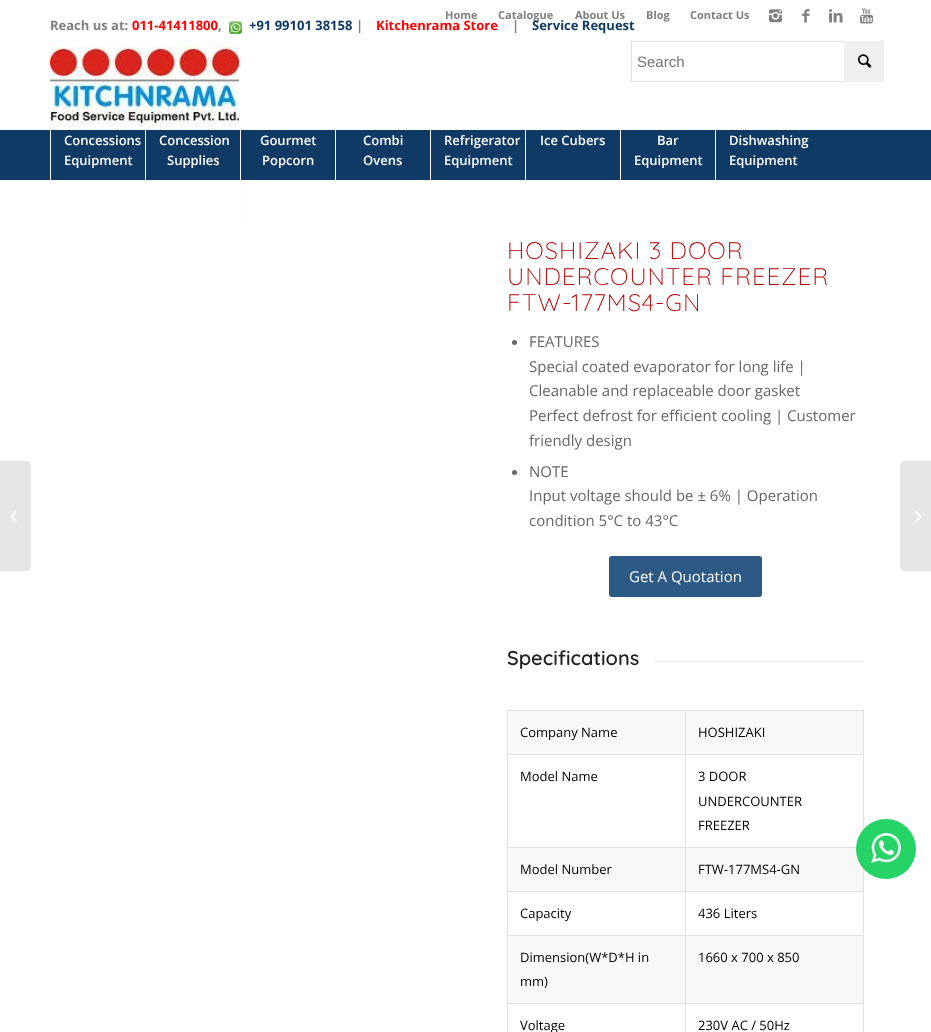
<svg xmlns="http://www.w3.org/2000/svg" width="931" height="1032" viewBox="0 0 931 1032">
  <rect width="100%" height="100%" fill="#ffffff"/>
  <rect x="487" y="10" width="1" height="10" fill="#fffcff"/>
  <text x="445" y="19" font-family="Open Sans" font-size="11" font-weight="bold" fill="#808080">Home</text>
  <rect x="564" y="10" width="1" height="10" fill="#fffcff"/>
  <text x="498" y="19" font-family="Open Sans" font-size="11" font-weight="bold" fill="#808080">Catalogue</text>
  <rect x="635" y="10" width="1" height="10" fill="#fffcff"/>
  <text x="575" y="19" font-family="Open Sans" font-size="11" font-weight="bold" fill="#808080">About Us</text>
  <rect x="679" y="10" width="1" height="10" fill="#fffcff"/>
  <text x="646" y="19" font-family="Open Sans" font-size="11" font-weight="bold" fill="#808080">Blog</text>
  <text x="690" y="19" font-family="Open Sans" font-size="11" font-weight="bold" fill="#808080">Contact Us</text>
  <rect x="790" y="0" width="1" height="30" fill="#fffcff"/>
  <image x="769" y="9" width="13" height="14" href="img1.png"/>
  <rect x="820" y="0" width="1" height="30" fill="#fffcff"/>
  <image x="802" y="9" width="8" height="14" href="img2.png"/>
  <rect x="850" y="0" width="1" height="30" fill="#fffcff"/>
  <image x="829" y="9" width="14" height="14" href="img3.png"/>
  <image x="860" y="8" width="13" height="16" href="img4.png"/>
  <text x="50" y="30" font-family="Open Sans" font-size="13" font-weight="bold" fill="#808080">Reach us at:</text>
  <text x="132" y="30" font-family="Open Sans" font-size="13" font-weight="bold" fill="#ff0000">011-41411800</text>
  <text x="218" y="30" font-family="Open Sans" font-size="13" font-weight="bold" fill="#808080">,</text>
  <image x="229" y="21" width="13" height="13" href="img5.png"/>
  <text x="249" y="30" font-family="Open Sans" font-size="13" font-weight="bold" fill="#0f3a66">+91 99101 38158</text>
  <text x="356" y="30" font-family="Open Sans" font-size="13" font-weight="bold" fill="#808080">|</text>
  <text x="376" y="30" font-family="Open Sans" font-size="13" font-weight="bold" fill="#ff0000">Kitchenrama Store</text>
  <text x="512" y="30" font-family="Open Sans" font-size="13" font-weight="bold" fill="#808080">|</text>
  <text x="532" y="30" font-family="Open Sans" font-size="13" font-weight="bold" fill="#0f3a66">Service Request</text>
  <image x="50" y="40" width="189" height="87" href="img6.png"/>
  <rect x="0" y="130" width="931" height="50" fill="#0f3a66"/>
  <rect x="50" y="130" width="1" height="100" fill="#fffcff"/>
  <text x="64" y="145" font-family="Open Sans" font-size="13" font-weight="600" fill="#ffffff">Concessions</text>
  <text x="64" y="165" font-family="Open Sans" font-size="13" font-weight="600" fill="#ffffff">Equipment</text>
  <rect x="145" y="130" width="1" height="100" fill="#fffcff"/>
  <text x="159" y="145" font-family="Open Sans" font-size="13" font-weight="600" fill="#ffffff">Concession</text>
  <text x="167" y="165" font-family="Open Sans" font-size="13" font-weight="600" fill="#ffffff">Supplies</text>
  <rect x="240" y="130" width="1" height="100" fill="#fffcff"/>
  <text x="260" y="145" font-family="Open Sans" font-size="13" font-weight="600" fill="#ffffff">Gourmet</text>
  <text x="262" y="165" font-family="Open Sans" font-size="13" font-weight="600" fill="#ffffff">Popcorn</text>
  <rect x="335" y="130" width="1" height="50" fill="#fffcff"/>
  <text x="363" y="145" font-family="Open Sans" font-size="13" font-weight="600" fill="#ffffff">Combi</text>
  <text x="363" y="165" font-family="Open Sans" font-size="13" font-weight="600" fill="#ffffff">Ovens</text>
  <rect x="430" y="130" width="1" height="50" fill="#fffcff"/>
  <text x="444" y="145" font-family="Open Sans" font-size="13" font-weight="600" fill="#ffffff">Refrigerator</text>
  <text x="444" y="165" font-family="Open Sans" font-size="13" font-weight="600" fill="#ffffff">Equipment</text>
  <rect x="525" y="130" width="1" height="50" fill="#fffcff"/>
  <text x="540" y="145" font-family="Open Sans" font-size="13" font-weight="600" fill="#ffffff">Ice Cubers</text>
  <rect x="620" y="130" width="1" height="50" fill="#fffcff"/>
  <text x="657" y="145" font-family="Open Sans" font-size="13" font-weight="600" fill="#ffffff">Bar</text>
  <text x="634" y="165" font-family="Open Sans" font-size="13" font-weight="600" fill="#ffffff">Equipment</text>
  <rect x="715" y="130" width="1" height="50" fill="#fffcff"/>
  <text x="729" y="145" font-family="Open Sans" font-size="13" font-weight="600" fill="#ffffff">Dishwashing</text>
  <text x="729" y="165" font-family="Open Sans" font-size="13" font-weight="600" fill="#ffffff">Equipment</text>
  <path d="M0 461H27C29 461 31 463 31 465V567C31 569 29 571 27 571H0Z" fill="#e6e6e6"/>
  <image x="10" y="511" width="7" height="11" href="img7.png"/>
  <rect x="631.5" y="41.5" width="252" height="40" fill="none" stroke="#e1e1e1"/>
  <text x="637" y="67" font-family="Liberation Sans" font-size="15" fill="#757575">Search</text>
  <rect x="844" y="41" width="40" height="41" fill="#efefef"/>
  <image x="858" y="54" width="14" height="14" href="img8.png"/>
  <text x="507" y="259" font-family="Quicksand" font-size="24" font-weight="300" letter-spacing="1" fill="#af0000">HOSHIZAKI 3 DOOR</text>
  <text x="507" y="285" font-family="Quicksand" font-size="24" font-weight="300" letter-spacing="1" fill="#af0000">UNDERCOUNTER FREEZER</text>
  <text x="507" y="311" font-family="Quicksand" font-size="24" font-weight="300" letter-spacing="1" fill="#af0000">FTW-177MS4-GN</text>
  <circle cx="514.5" cy="342.5" r="2.5" fill="#666666"/>
  <text x="529" y="347" font-family="Open Sans" font-size="15" fill="#666666">FEATURES</text>
  <text x="529" y="372" font-family="Open Sans" font-size="15" fill="#666666">Special coated evaporator for long life |</text>
  <text x="529" y="396" font-family="Open Sans" font-size="15" fill="#666666">Cleanable and replaceable door gasket</text>
  <text x="529" y="421" font-family="Open Sans" font-size="15" fill="#666666">Perfect defrost for efficient cooling | Customer</text>
  <text x="529" y="446" font-family="Open Sans" font-size="15" fill="#666666">friendly design</text>
  <circle cx="514.5" cy="472.5" r="2.5" fill="#666666"/>
  <text x="529" y="477" font-family="Open Sans" font-size="15" fill="#666666">NOTE</text>
  <text x="529" y="501" font-family="Open Sans" font-size="15" fill="#666666">Input voltage should be ± 6% | Operation</text>
  <text x="529" y="526" font-family="Open Sans" font-size="15" fill="#666666">condition 5°C to 43°C</text>
  <rect x="609" y="556" width="153" height="41" rx="3" fill="#2c5a85"/>
  <text x="629" y="582" font-family="Open Sans" font-size="15" fill="#ffffff">Get A Quotation</text>
  <text x="507" y="665" font-family="Quicksand" font-size="20" font-weight="600" fill="#222222">Specifications</text>
  <rect x="654" y="661" width="210" height="1" fill="#e8e8e8"/>
  <rect x="508" y="711" width="355" height="292" fill="#f8f8f8"/>
  <rect x="507" y="710" width="357" height="1" fill="#e1e1e1"/>
  <rect x="863" y="754" width="1" height="76" fill="#e1e1e1"/>
  <rect x="863" y="710" width="1" height="45" fill="#e1e1e1"/>
  <rect x="508" y="755" width="355" height="92" fill="#ffffff"/>
  <rect x="508" y="892" width="355" height="43" fill="#ffffff"/>
  <rect x="685" y="1003" width="1" height="29" fill="#e1e1e1"/>
  <rect x="863" y="868" width="1" height="164" fill="#e1e1e1"/>
  <rect x="685" y="1003" width="179" height="1" fill="#e1e1e1"/>
  <rect x="685" y="935" width="1" height="69" fill="#e1e1e1"/>
  <rect x="685" y="935" width="179" height="1" fill="#e1e1e1"/>
  <rect x="685" y="891" width="1" height="45" fill="#e1e1e1"/>
  <rect x="685" y="891" width="179" height="1" fill="#e1e1e1"/>
  <rect x="685" y="847" width="1" height="45" fill="#e1e1e1"/>
  <rect x="685" y="847" width="179" height="1" fill="#e1e1e1"/>
  <rect x="685" y="754" width="1" height="94" fill="#e1e1e1"/>
  <rect x="685" y="754" width="179" height="1" fill="#e1e1e1"/>
  <rect x="685" y="710" width="1" height="45" fill="#e1e1e1"/>
  <rect x="507" y="1003" width="1" height="29" fill="#e1e1e1"/>
  <rect x="507" y="1003" width="179" height="1" fill="#e1e1e1"/>
  <rect x="507" y="935" width="1" height="69" fill="#e1e1e1"/>
  <rect x="507" y="935" width="179" height="1" fill="#e1e1e1"/>
  <rect x="507" y="891" width="1" height="45" fill="#e1e1e1"/>
  <rect x="507" y="891" width="179" height="1" fill="#e1e1e1"/>
  <rect x="507" y="847" width="1" height="45" fill="#e1e1e1"/>
  <rect x="507" y="847" width="179" height="1" fill="#e1e1e1"/>
  <rect x="507" y="754" width="1" height="94" fill="#e1e1e1"/>
  <rect x="507" y="754" width="179" height="1" fill="#e1e1e1"/>
  <rect x="507" y="710" width="1" height="45" fill="#e1e1e1"/>
  <text x="520" y="737" font-family="Open Sans" font-size="13" fill="#000000">Company Name</text>
  <text x="698" y="737" font-family="Open Sans" font-size="13" fill="#000000">HOSHIZAKI</text>
  <text x="520" y="781" font-family="Open Sans" font-size="13" fill="#000000">Model Name</text>
  <text x="698" y="781" font-family="Open Sans" font-size="13" fill="#000000">3 DOOR</text>
  <text x="698" y="806" font-family="Open Sans" font-size="13" fill="#000000">UNDERCOUNTER</text>
  <text x="698" y="830" font-family="Open Sans" font-size="13" fill="#000000">FREEZER</text>
  <text x="520" y="874" font-family="Open Sans" font-size="13" fill="#000000">Model Number</text>
  <text x="698" y="874" font-family="Open Sans" font-size="13" fill="#000000">FTW-177MS4-GN</text>
  <text x="520" y="918" font-family="Open Sans" font-size="13" fill="#000000">Capacity</text>
  <text x="698" y="918" font-family="Open Sans" font-size="13" fill="#000000">436 Liters</text>
  <text x="520" y="962" font-family="Open Sans" font-size="13" fill="#000000">Dimension(W*D*H in</text>
  <text x="520" y="986" font-family="Open Sans" font-size="13" fill="#000000">mm)</text>
  <text x="698" y="962" font-family="Open Sans" font-size="13" fill="#000000">1660 x 700 x 850</text>
  <text x="520" y="1030" font-family="Open Sans" font-size="13" fill="#000000">Voltage</text>
  <text x="698" y="1030" font-family="Open Sans" font-size="13" fill="#000000">230V AC / 50Hz</text>
  <path d="M904 461H931V571H904C902 571 900 569 900 567V465C900 463 902 461 904 461Z" fill="#e6e6e6"/>
  <image x="915" y="511" width="7" height="11" href="img9.png"/>
  <circle cx="886" cy="849" r="30" fill="#25d366"/>
  <image x="871" y="833" width="30" height="30" href="img10.png"/>
</svg>
